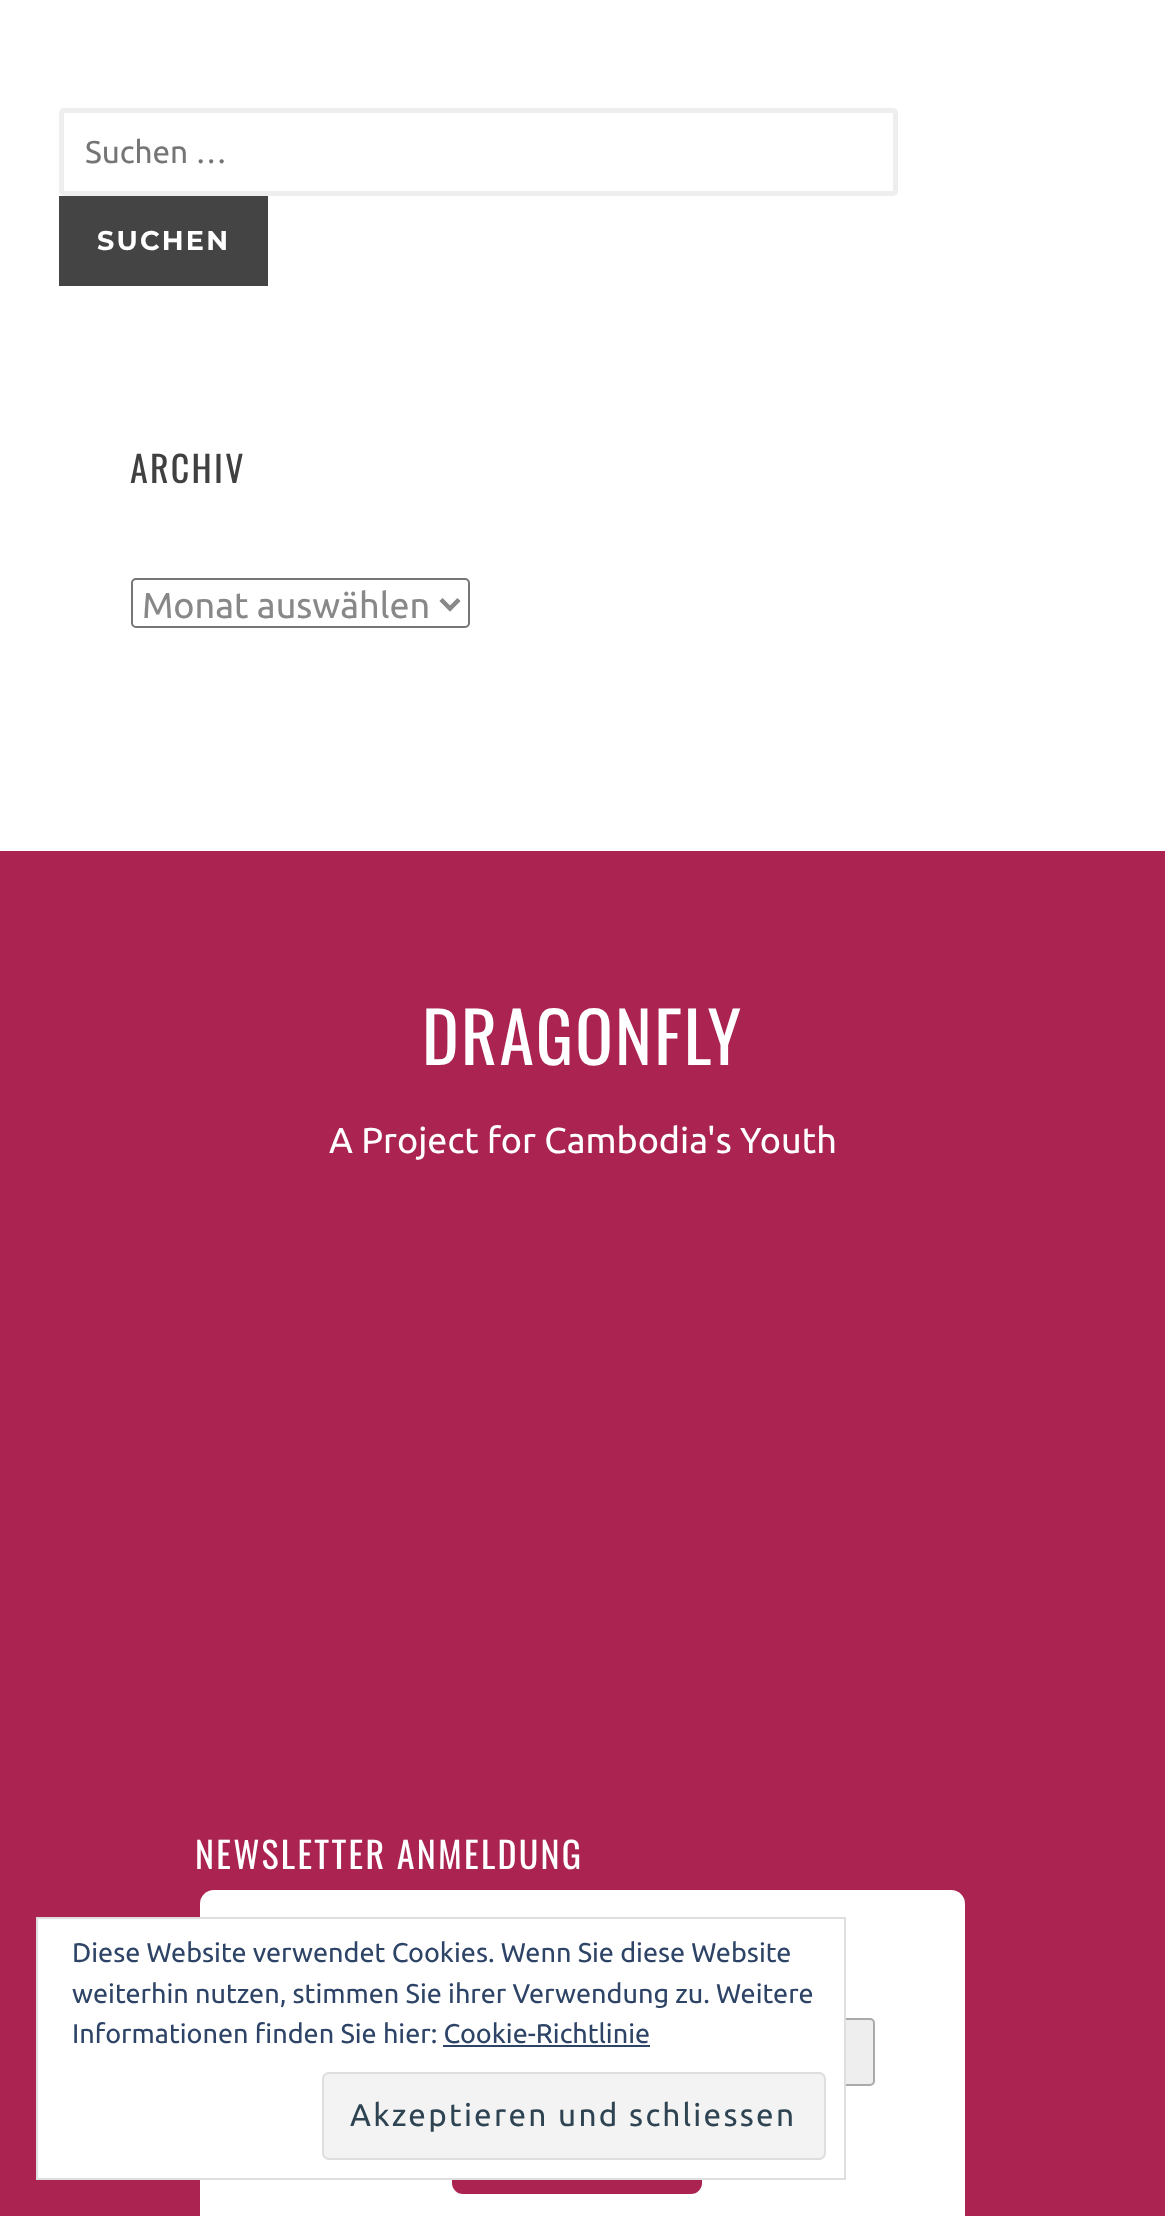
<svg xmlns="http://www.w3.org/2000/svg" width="1165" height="2216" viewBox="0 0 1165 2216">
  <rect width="100%" height="100%" fill="#ffffff"/>
  <rect x="61.5" y="110.5" width="834" height="83" rx="2.5" fill="none" stroke="#eeeeee" stroke-width="5"/>
  <text x="85" y="163" font-family="Ubuntu" font-size="31.5" fill="#757575">Suchen …</text>
  <rect x="59" y="196" width="209" height="90" fill="#444444"/>
  <text x="97" y="250" font-family="Montserrat" font-size="27" font-weight="bold" letter-spacing="2.25" fill="#ffffff">SUCHEN</text>
  <text x="130" y="483" font-family="Oswald" font-size="36" letter-spacing="2.25" fill="#404040">ARCHIV</text>
  <rect x="132" y="579" width="337" height="48" rx="4" fill="none" stroke="#767676" stroke-width="2"/>
  <path d="M441 599.5L450 608.5L459 599.5" fill="none" stroke="#888888" stroke-width="4.5"/>
  <text x="142" y="618" font-family="Ubuntu" font-size="36" fill="#888888">Monat auswählen</text>
  <rect x="0" y="851" width="1165" height="1365" fill="#aa2351"/>
  <text x="422" y="1065" font-family="Oswald" font-size="69.75" letter-spacing="2.25" fill="#ffffff">DRAGONFLY</text>
  <text x="329" y="1153" font-family="Ubuntu" font-size="36" fill="#ffffff">A Project for Cambodia's Youth</text>
  <text x="195" y="1869" font-family="Oswald" font-size="36" letter-spacing="2.25" fill="#ffffff">NEWSLETTER ANMELDUNG</text>
  <rect x="200" y="1890" width="765" height="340" rx="14" fill="#ffffff"/>
  <rect x="291" y="2019" width="583" height="66" rx="4" fill="#eeeeee" stroke="#aaaaaa" stroke-width="2"/>
  <rect x="452" y="2104" width="250" height="90" rx="11" fill="#aa2351"/>
  <rect x="37" y="1918" width="808" height="261" fill="#ffffff" stroke="#dedede" stroke-width="2"/>
  <text x="72" y="1962" font-family="Ubuntu" font-size="27" fill="#2e4467">Diese Website verwendet Cookies. Wenn Sie diese Website</text>
  <text x="72" y="2003" font-family="Ubuntu" font-size="27" fill="#2e4467">weiterhin nutzen, stimmen Sie ihrer Verwendung zu. Weitere</text>
  <text x="72" y="2043" font-family="Ubuntu" font-size="27" fill="#2e4467">Informationen finden Sie hier: Cookie-Richtlinie</text>
  <rect x="443" y="2045" width="207" height="2" fill="#2e4467"/>
  <rect x="323" y="2073" width="502" height="86" rx="6" fill="#f3f3f3" stroke="#dedede" stroke-width="2"/>
  <text x="350" y="2126" font-family="Ubuntu" font-size="31.5" letter-spacing="2.25" fill="#2e4453">Akzeptieren und schliessen</text>
</svg>
